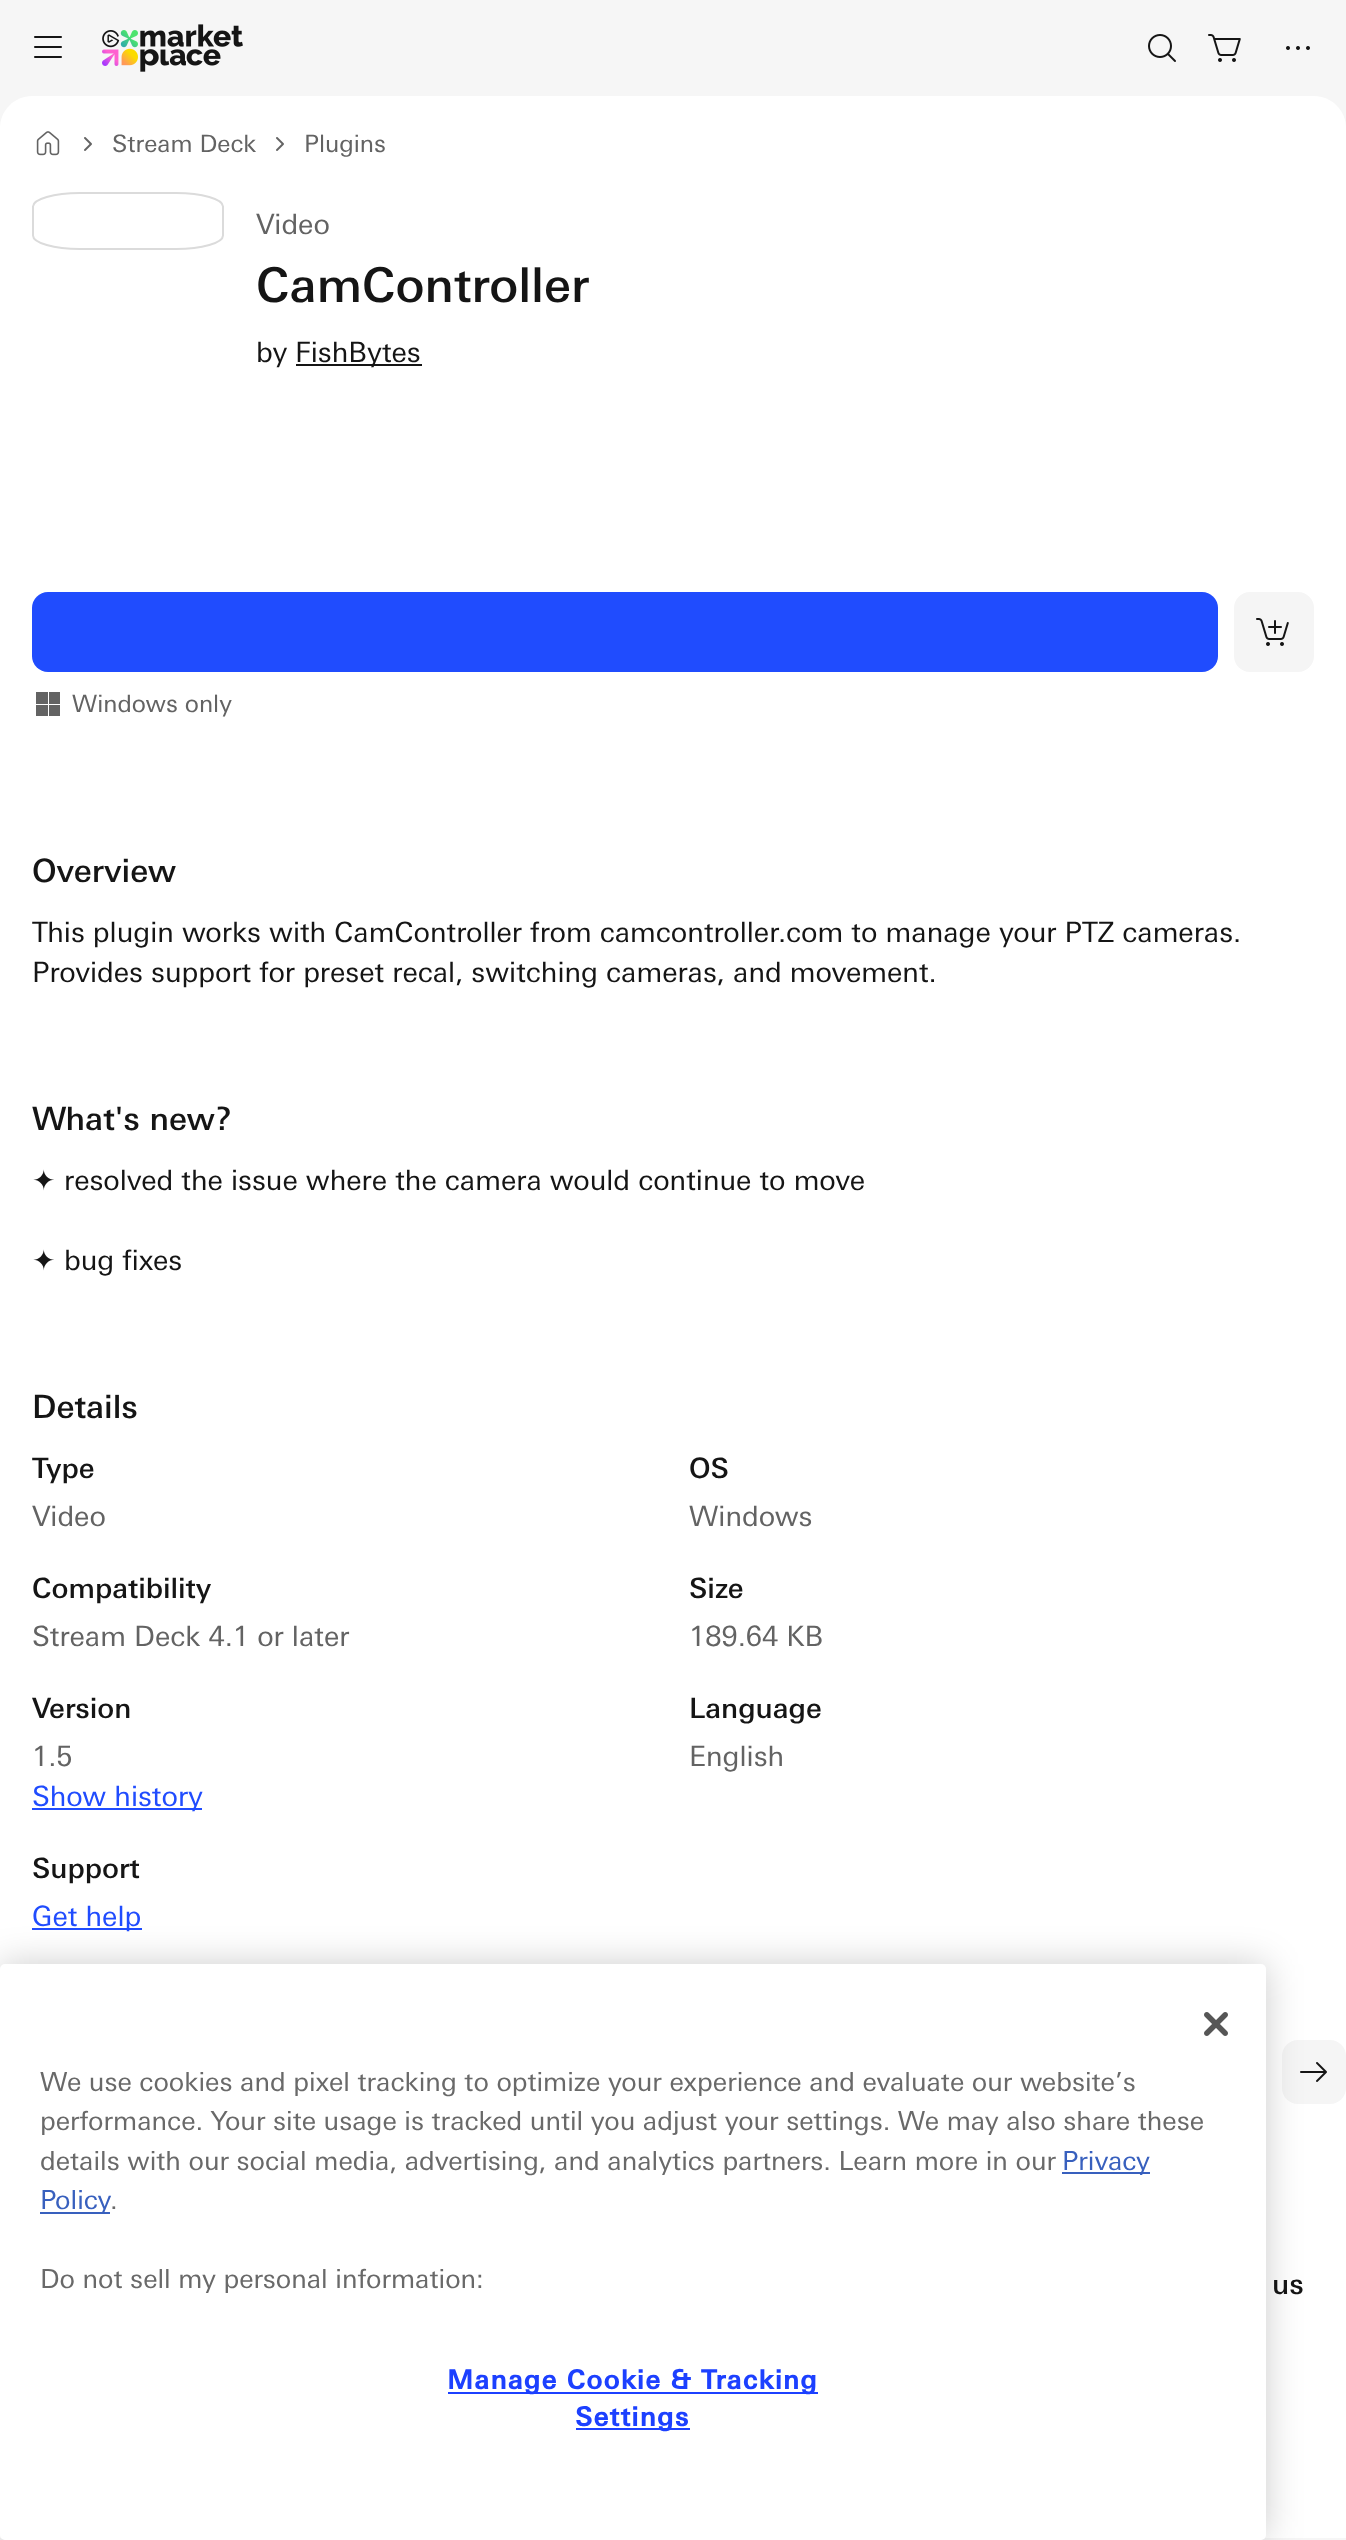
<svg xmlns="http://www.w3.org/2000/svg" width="1346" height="2540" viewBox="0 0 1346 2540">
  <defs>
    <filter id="blur1" x="-50%" y="-200%" width="200%" height="500%"><feGaussianBlur stdDeviation="18"/></filter>
  </defs>
  <rect width="100%" height="100%" fill="#f6f6f6"/>
  <image x="34" y="36" width="28" height="22" href="img1.png"/>
  <image x="102" y="24" width="141" height="48" href="img2.png"/>
  <image x="1148" y="34" width="28" height="28" href="img3.png"/>
  <image x="1208" y="34" width="33" height="28" href="img4.png"/>
  <image x="1286" y="46" width="24" height="4" href="img5.png"/>
  <path d="M32 96H1314C1331.5 96 1346 110.5 1346 128V2538H0V128C0 110.5 14.5 96 32 96Z" fill="#ffffff"/>
  <image x="36" y="131" width="24" height="25" href="img6.png"/>
  <image x="84" y="137" width="8" height="14" href="img7.png"/>
  <text x="112" y="152" font-family="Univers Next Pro" font-size="24" fill="#636363">Stream Deck</text>
  <image x="276" y="137" width="8" height="14" href="img7.png"/>
  <text x="304" y="152" font-family="Univers Next Pro" font-size="24" fill="#636363">Plugins</text>
  <path d="M80 193H176C202 193 223 199 223 206.5V235.5C223 243 202 249 176 249H80C54 249 33 243 33 235.5V206.5C33 199 54 193 80 193Z" fill="none" stroke="#dbdbdb" stroke-width="2"/>
  <text x="256" y="234" font-family="Univers Next Pro" font-size="28" fill="#636363">Video</text>
  <text x="256" y="302" font-family="Univers Next Pro" font-size="48" font-weight="500" fill="#151515">CamController</text>
  <text x="256" y="362" font-family="Univers Next Pro" font-size="28" fill="#151515">by</text>
  <rect x="296" y="364" width="126" height="2" fill="#151515"/>
  <text x="295" y="362" font-family="Univers Next Pro" font-size="28" fill="#151515">FishBytes</text>
  <rect x="32" y="592" width="1186" height="80" rx="16" fill="#204cfe"/>
  <rect x="1234" y="592" width="80" height="80" rx="16" fill="#f5f5f5"/>
  <image x="1256" y="618" width="33" height="28" href="img8.png"/>
  <rect x="36" y="692" width="12" height="12" fill="#636363"/>
  <rect x="49" y="692" width="11" height="12" fill="#636363"/>
  <rect x="36" y="705" width="12" height="11" fill="#636363"/>
  <rect x="49" y="705" width="11" height="11" fill="#636363"/>
  <text x="72" y="712" font-family="Univers Next Pro" font-size="24" fill="#636363">Windows only</text>
  <text x="32" y="882" font-family="Univers Next Pro" font-size="32" font-weight="500" fill="#151515">Overview</text>
  <text x="32" y="942" font-family="Univers Next Pro" font-size="28" fill="#151515">This plugin works with CamController from camcontroller.com to manage your PTZ cameras.</text>
  <text x="32" y="982" font-family="Univers Next Pro" font-size="28" fill="#151515">Provides support for preset recal, switching cameras, and movement.</text>
  <text x="32" y="1130" font-family="Univers Next Pro" font-size="32" font-weight="500" fill="#151515">What's new?</text>
  <text x="32" y="1190" font-family="DejaVu Sans" font-size="28" fill="#151515">✦</text>
  <text x="64" y="1190" font-family="Univers Next Pro" font-size="28" fill="#151515">resolved the issue where the camera would continue to move</text>
  <text x="32" y="1270" font-family="DejaVu Sans" font-size="28" fill="#151515">✦</text>
  <text x="64" y="1270" font-family="Univers Next Pro" font-size="28" fill="#151515">bug fixes</text>
  <text x="32" y="1418" font-family="Univers Next Pro" font-size="32" font-weight="500" fill="#151515">Details</text>
  <text x="32" y="1478" font-family="Univers Next Pro" font-size="28" font-weight="500" fill="#151515">Type</text>
  <text x="32" y="1526" font-family="Univers Next Pro" font-size="28" fill="#636363">Video</text>
  <text x="689" y="1478" font-family="Univers Next Pro" font-size="28" font-weight="500" fill="#151515">OS</text>
  <text x="689" y="1526" font-family="Univers Next Pro" font-size="28" fill="#636363">Windows</text>
  <text x="32" y="1598" font-family="Univers Next Pro" font-size="28" font-weight="500" fill="#151515">Compatibility</text>
  <text x="32" y="1646" font-family="Univers Next Pro" font-size="28" fill="#636363">Stream Deck 4.1 or later</text>
  <text x="689" y="1598" font-family="Univers Next Pro" font-size="28" font-weight="500" fill="#151515">Size</text>
  <text x="689" y="1646" font-family="Univers Next Pro" font-size="28" fill="#636363">189.64 KB</text>
  <text x="32" y="1718" font-family="Univers Next Pro" font-size="28" font-weight="500" fill="#151515">Version</text>
  <text x="32" y="1766" font-family="Univers Next Pro" font-size="28" fill="#636363">1.5</text>
  <rect x="32" y="1808" width="170" height="2" fill="#204cfe"/>
  <text x="32" y="1806" font-family="Univers Next Pro" font-size="28" fill="#204cfe">Show history</text>
  <text x="689" y="1718" font-family="Univers Next Pro" font-size="28" font-weight="500" fill="#151515">Language</text>
  <text x="689" y="1766" font-family="Univers Next Pro" font-size="28" fill="#636363">English</text>
  <text x="32" y="1878" font-family="Univers Next Pro" font-size="28" font-weight="500" fill="#151515">Support</text>
  <rect x="32" y="1928" width="110" height="2" fill="#204cfe"/>
  <text x="32" y="1926" font-family="Univers Next Pro" font-size="28" fill="#204cfe">Get help</text>
  <rect x="1282" y="2040" width="64" height="64" rx="16" fill="#f5f5f5"/>
  <image x="1300" y="2062" width="27" height="20" href="img9.png"/>
  <text x="1272" y="2294" font-family="Univers Next Pro" font-size="28" font-weight="500" fill="#151515">us</text>
  <rect x="0" y="1964" width="1266" height="576" rx="5" fill="#000000" fill-opacity="0.2" filter="url(#blur1)"/>
  <rect x="0" y="1964" width="1266" height="576" rx="5" fill="#ffffff"/>
  <image x="1204" y="2012" width="24" height="24" href="img10.png"/>
  <text x="40" y="2091" font-family="Univers Next Pro" font-size="26.25" fill="#696969">We use cookies and pixel tracking to optimize your experience and evaluate our website’s</text>
  <text x="40" y="2130" font-family="Univers Next Pro" font-size="26.25" fill="#696969">performance. Your site usage is tracked until you adjust your settings. We may also share these</text>
  <text x="40" y="2170" font-family="Univers Next Pro" font-size="26.25" fill="#696969">details with our social media, advertising, and analytics partners. Learn more in our</text>
  <rect x="1062" y="2172" width="88" height="2" fill="#3860be"/>
  <text x="1062" y="2170" font-family="Univers Next Pro" font-size="26.25" fill="#3860be">Privacy</text>
  <rect x="40" y="2212" width="70" height="2" fill="#3860be"/>
  <text x="40" y="2209" font-family="Univers Next Pro" font-size="26.25" fill="#3860be">Policy</text>
  <text x="110" y="2209" font-family="Univers Next Pro" font-size="26.25" fill="#696969">.</text>
  <text x="40" y="2288" font-family="Univers Next Pro" font-size="26.25" fill="#696969">Do not sell my personal information:</text>
  <rect x="448" y="2392" width="370" height="2" fill="#1c40ff"/>
  <text x="447" y="2389" font-family="Univers Next Pro" font-size="26.25" font-weight="bold" letter-spacing="1.3" fill="#1c40ff">Manage Cookie &amp; Tracking</text>
  <rect x="576" y="2428" width="114" height="2" fill="#1c40ff"/>
  <text x="575" y="2426" font-family="Univers Next Pro" font-size="26.25" font-weight="bold" letter-spacing="1.3" fill="#1c40ff">Settings</text>
</svg>
